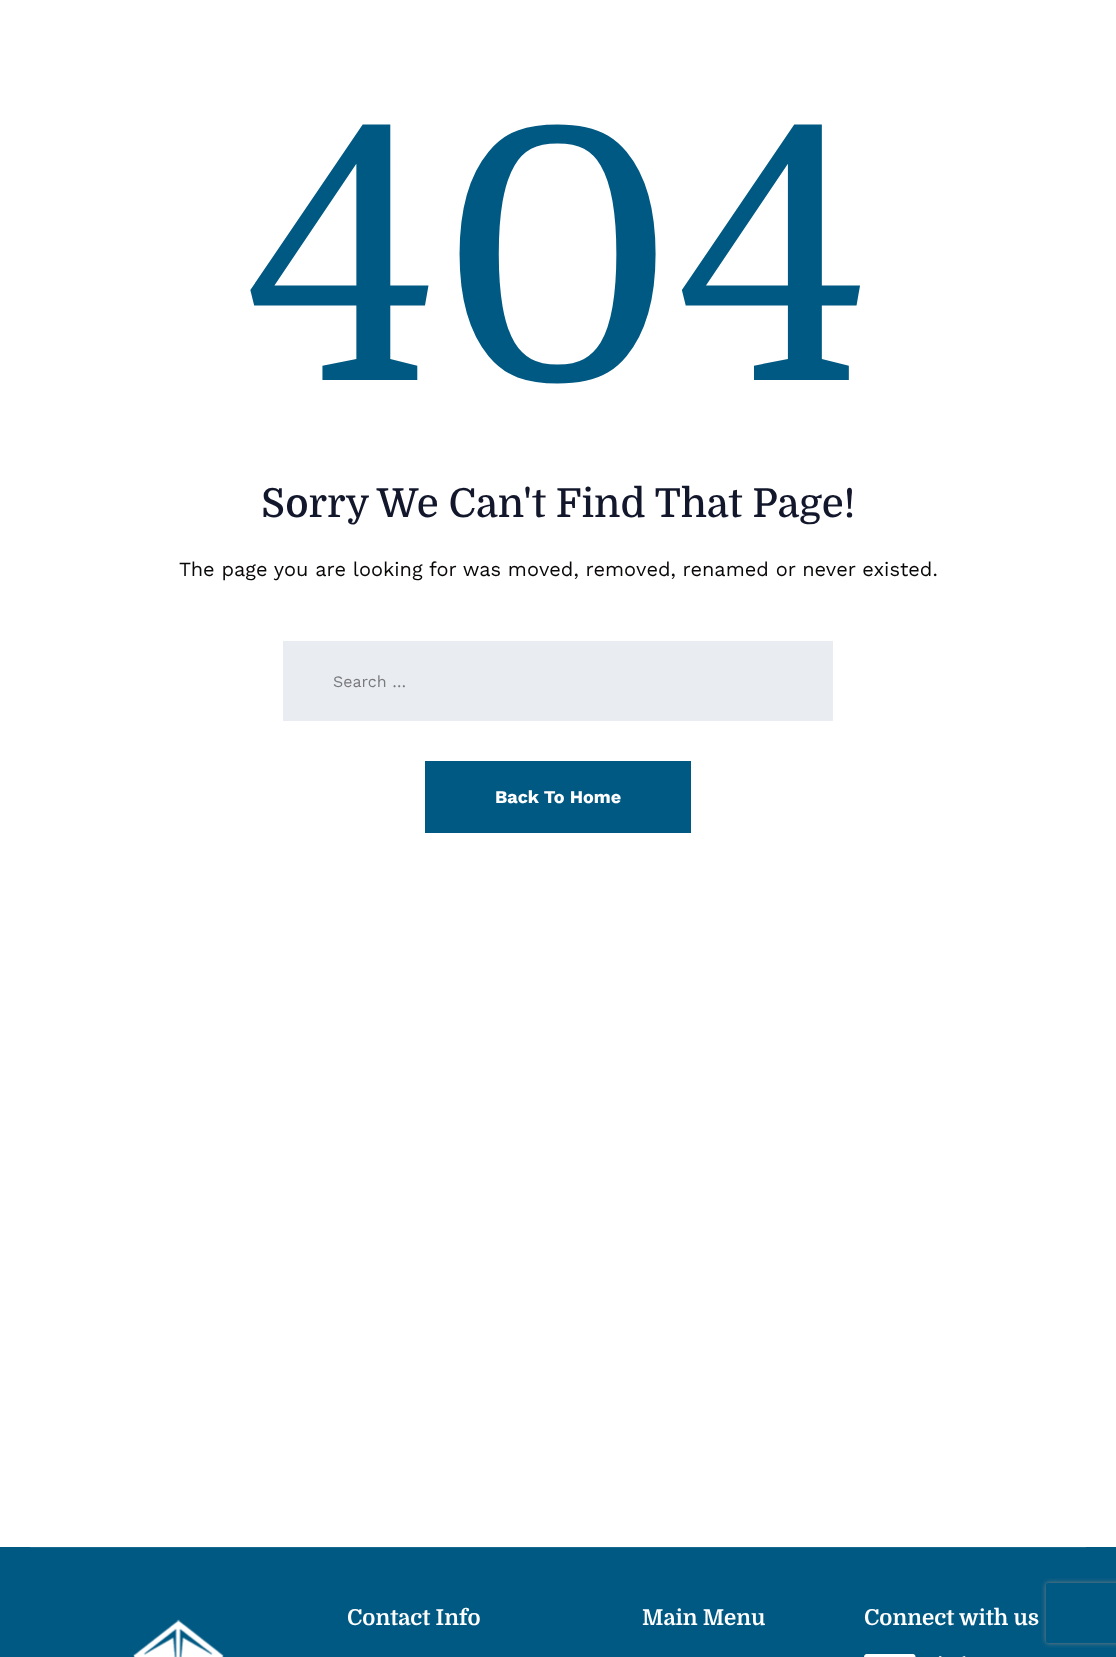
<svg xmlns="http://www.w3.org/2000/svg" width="1116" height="1657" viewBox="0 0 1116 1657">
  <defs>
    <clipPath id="clip1"><path d="M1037 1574H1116V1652H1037ZM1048 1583H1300C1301 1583 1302 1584 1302 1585V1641C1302 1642 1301 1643 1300 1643H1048C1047 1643 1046 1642 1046 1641V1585C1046 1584 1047 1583 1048 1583Z" clip-rule="evenodd"/></clipPath>
    <filter id="blur1" x="-50%" y="-200%" width="200%" height="500%"><feGaussianBlur stdDeviation="2.5"/></filter>
  </defs>
  <rect width="100%" height="100%" fill="#ffffff"/>
  <text x="244" y="380" font-family="Domine" font-size="350" fill="#005983">404</text>
  <text x="261" y="517" font-family="Domine" font-size="40" font-weight="500" fill="#13172b">Sorry We Can't Find That Page!</text>
  <text x="179" y="576" font-family="Work Sans" font-size="20" fill="#0a0707">The page you are looking for was moved, removed, renamed or never existed.</text>
  <rect x="283" y="641" width="550" height="80" fill="#e9edf2"/>
  <text x="333" y="687" font-family="Work Sans" font-size="16" fill="#7a7a7d">Search …</text>
  <rect x="425" y="761" width="266" height="72" fill="#005983"/>
  <text x="495" y="803" font-family="Work Sans" font-size="18" font-weight="bold" fill="#ffffff">Back To Home</text>
  <rect x="0" y="1547" width="1116" height="110" fill="#005983"/>
  <rect x="30" y="1547" width="1056" height="1" fill="#1a6a8f"/>
  <text x="347" y="1625" font-family="Domine" font-size="22" font-weight="bold" fill="#ffffff">Contact Info</text>
  <text x="642" y="1625" font-family="Domine" font-size="22" font-weight="bold" fill="#ffffff">Main Menu</text>
  <text x="864" y="1625" font-family="Domine" font-size="22" font-weight="bold" fill="#ffffff">Connect with us</text>
  <image x="864" y="1654" width="102" height="3" href="img1.png"/>
  <image x="133" y="1619" width="91" height="38" href="img2.png"/>
  <g clip-path="url(#clip1)">
    <rect x="1046" y="1583" width="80" height="60" rx="2" fill="#808080" filter="url(#blur1)"/>
  </g>
</svg>
